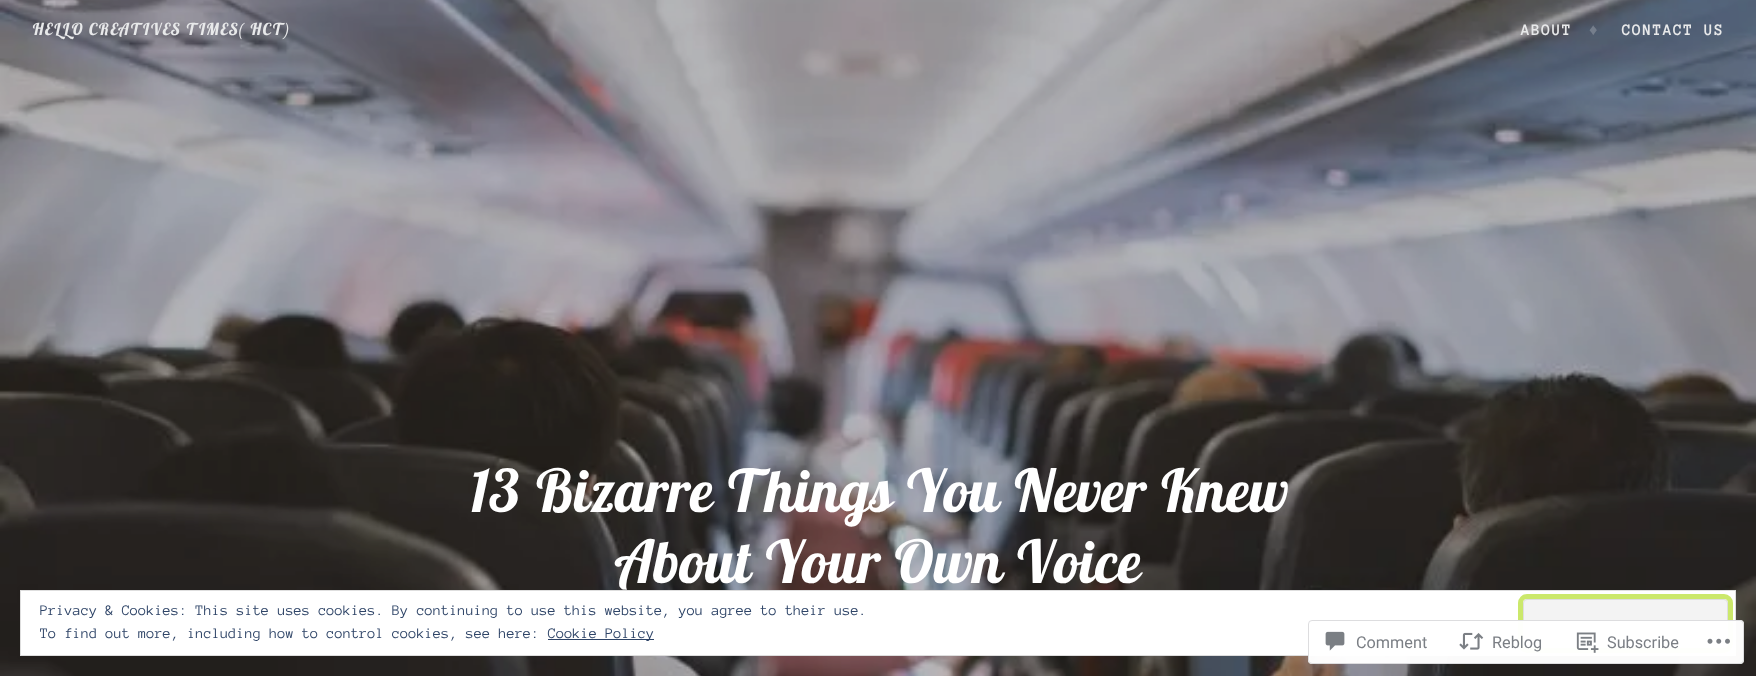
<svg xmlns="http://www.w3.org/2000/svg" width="1756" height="676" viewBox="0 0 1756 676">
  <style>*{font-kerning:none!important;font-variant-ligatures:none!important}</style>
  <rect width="100%" height="100%" fill="#1e1c1b"/>
  <image x="0" y="0" width="1756" height="676" href="img1.png"/>
  <text x="32" y="35" font-family="Lobster Two" font-size="16.5" font-weight="bold" font-style="italic" letter-spacing="1.25" fill="#e8e9ea">HELLO CREATIVES TIMES( HCT)</text>
  <text x="1521" y="35" font-family="Anonymous Pro" font-size="16.5" font-weight="bold" letter-spacing="1.25" fill="#e8e9ea">ABOUT</text>
  <text x="1589" y="35" font-family="Liberation Sans" font-size="16.5" font-weight="bold" letter-spacing="1.25" fill="#757e8c">♦</text>
  <text x="1622" y="35" font-family="Anonymous Pro" font-size="16.5" font-weight="bold" letter-spacing="1.25" fill="#e8e9ea">CONTACT US</text>
  <text x="469" y="512" font-family="Lobster Two" font-size="58.9" font-weight="bold" font-style="italic" fill="#ffffff">13 Bizarre Things</text>
  <text x="904" y="512" font-family="Lobster Two" font-size="58.9" font-weight="bold" font-style="italic" fill="#ffffff">You Never Knew</text>
  <text x="617" y="583" font-family="Lobster Two" font-size="58.9" font-weight="bold" font-style="italic" fill="#ffffff">About Your Own Voice</text>
  <rect x="20.5" y="590.5" width="1715" height="65" fill="#ffffff" stroke="#dedede"/>
  <text x="40" y="615" font-family="Anonymous Pro" font-size="15" fill="#2e4467">Privacy &amp; Cookies: This site uses cookies. By continuing to use this website, you agree to their use.</text>
  <rect x="1523.5" y="599.5" width="204" height="48" rx="3.5" fill="#f3f3f3" stroke="#dedede"/>
  <rect x="1520.5" y="596.5" width="210" height="54" rx="6.5" fill="none" stroke="#cbe86b" stroke-width="5"/>
  <text x="40" y="638" font-family="Anonymous Pro" font-size="15" fill="#2e4467">To find out more, including how to control cookies, see here:</text>
  <rect x="548" y="639" width="106" height="1" fill="#2e4467"/>
  <text x="548" y="638" font-family="Anonymous Pro" font-size="15" fill="#2e4467">Cookie Policy</text>
  <rect x="1308" y="620" width="436" height="44" rx="4" fill="#ffffff" fill-opacity="0.98"/>
  <rect x="1308.5" y="620.5" width="435" height="43" rx="3.5" fill="none" stroke="#dcdcde" stroke-opacity="0.98"/>
  <image x="1325" y="631" width="20" height="20" href="img2.png"/>
  <text x="1356" y="648" font-family="Roboto" font-size="16.25" fill="#7b7f85">Comment</text>
  <image x="1459" y="632" width="25" height="18" href="img3.png"/>
  <text x="1492" y="648" font-family="Roboto" font-size="16.25" fill="#7b7f85">Reblog</text>
  <image x="1576" y="632" width="23" height="21" href="img4.png"/>
  <text x="1607" y="648" font-family="Roboto" font-size="16.25" fill="#7b7f85">Subscribe</text>
  <image x="1707" y="638" width="23" height="6" href="img5.png"/>
</svg>
